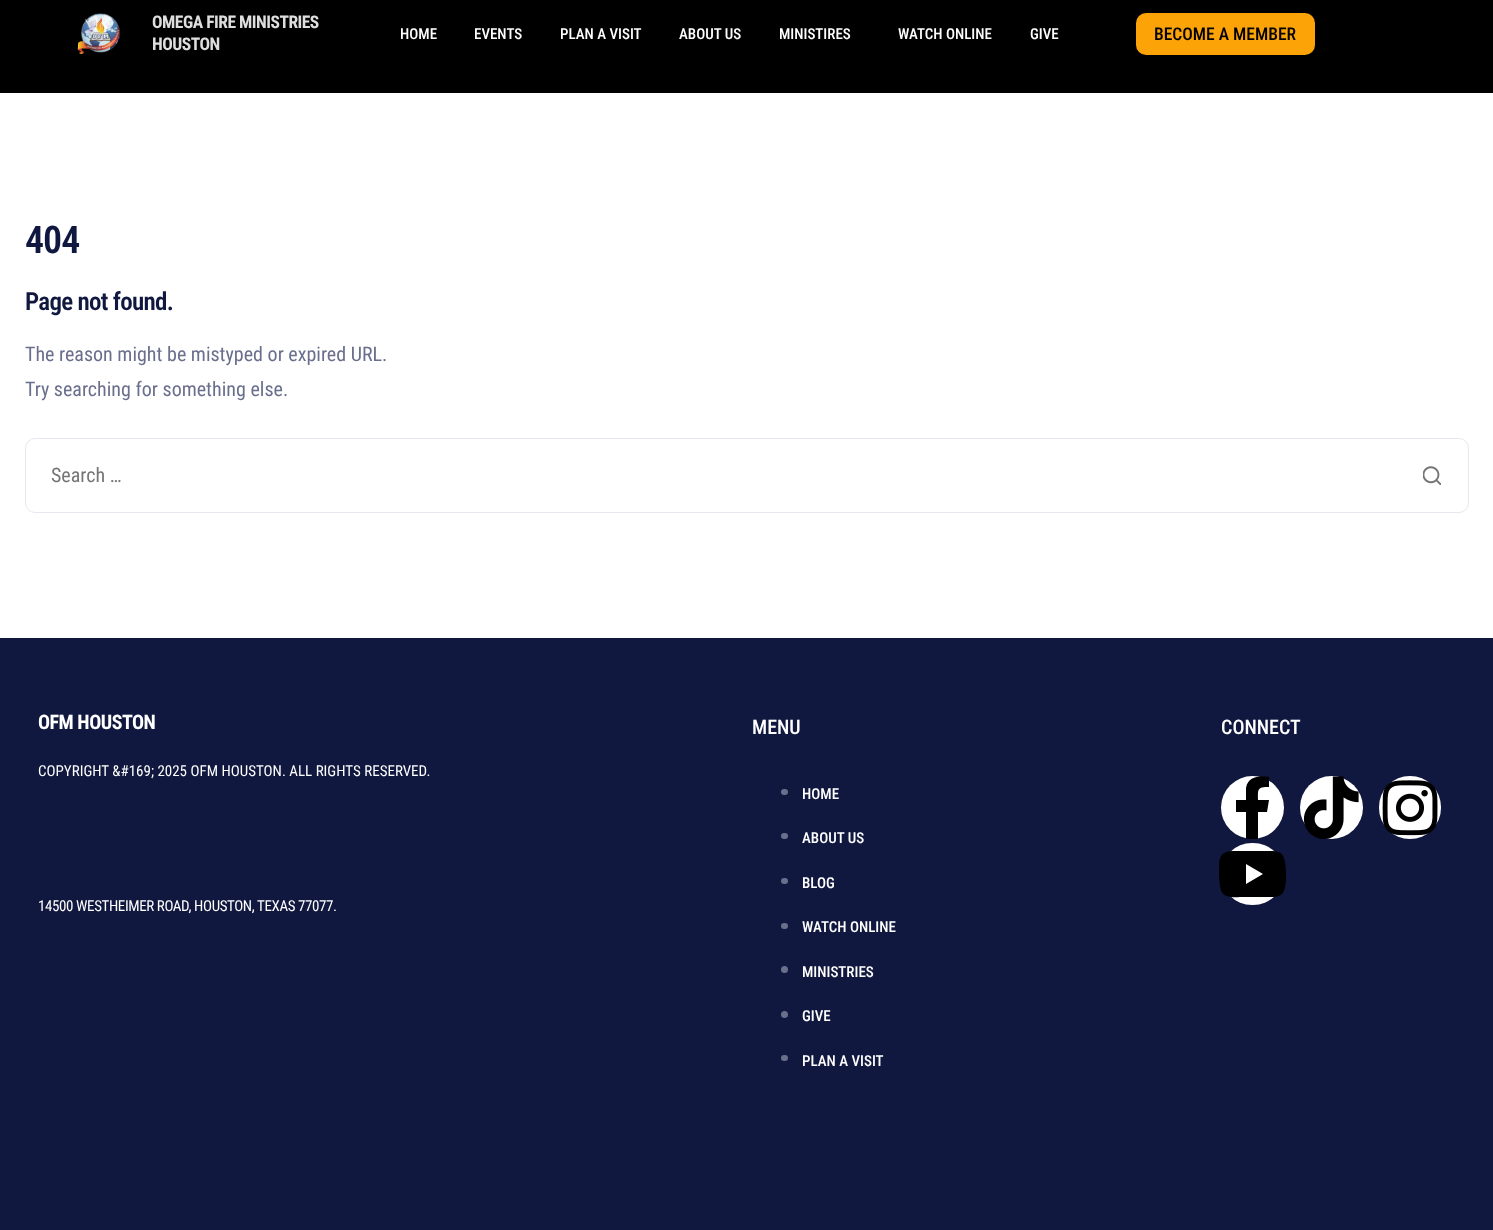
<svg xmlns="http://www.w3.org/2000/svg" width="1493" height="1230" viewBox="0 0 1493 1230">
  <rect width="100%" height="100%" fill="#11183f"/>
  <rect x="0" y="0" width="1493" height="93" fill="#000000"/>
  <image x="77" y="13" width="44" height="42" href="img1.png"/>
  <text x="152" y="28" font-family="Roboto Condensed" font-size="17.5" font-weight="bold" letter-spacing="-0.5" fill="#dedede">OMEGA FIRE MINISTRIES</text>
  <text x="152" y="50" font-family="Roboto Condensed" font-size="17.5" font-weight="bold" letter-spacing="-0.5" fill="#dedede">HOUSTON</text>
  <text x="400" y="39" font-family="Roboto Condensed" font-size="15" font-weight="500" fill="#ffffff">HOME</text>
  <text x="474" y="39" font-family="Roboto Condensed" font-size="15" font-weight="500" fill="#ffffff">EVENTS</text>
  <text x="560" y="39" font-family="Roboto Condensed" font-size="15" font-weight="500" fill="#ffffff">PLAN A VISIT</text>
  <text x="679" y="39" font-family="Roboto Condensed" font-size="15" font-weight="500" fill="#ffffff">ABOUT US</text>
  <text x="779" y="39" font-family="Roboto Condensed" font-size="15" font-weight="500" fill="#ffffff">MINISTIRES</text>
  <text x="898" y="39" font-family="Roboto Condensed" font-size="15" font-weight="500" fill="#ffffff">WATCH ONLINE</text>
  <text x="1030" y="39" font-family="Roboto Condensed" font-size="15" font-weight="500" fill="#ffffff">GIVE</text>
  <rect x="1136" y="13" width="179" height="42" rx="10" fill="#fca307"/>
  <text x="1154" y="40" font-family="Roboto Condensed" font-size="17.5" font-weight="500" fill="#000000">BECOME A MEMBER</text>
  <rect x="0" y="93" width="1493" height="545" fill="#ffffff"/>
  <text x="25" y="253" font-family="Roboto Condensed" font-size="38" font-weight="600" letter-spacing="-1" fill="#101840">404</text>
  <text x="25" y="310" font-family="Roboto Condensed" font-size="25" font-weight="600" letter-spacing="-0.7" fill="#101840">Page not found.</text>
  <text x="25" y="361" font-family="Roboto Condensed" font-size="20" fill="#696f8c">The reason might be mistyped or expired URL.</text>
  <text x="25" y="396" font-family="Roboto Condensed" font-size="20" fill="#696f8c">Try searching for something else.</text>
  <rect x="25.5" y="438.5" width="1443" height="74" rx="9.5" fill="none" stroke="#e6e8f0"/>
  <text x="51" y="482" font-family="Roboto Condensed" font-size="20" fill="#757575">Search …</text>
  <image x="1423" y="466" width="18" height="19" href="img2.png"/>
  <text x="38" y="729" font-family="Roboto Condensed" font-size="20" font-weight="bold" letter-spacing="-0.5" fill="#ffffff">OFM HOUSTON</text>
  <text x="38" y="776" font-family="Roboto Condensed" font-size="15" fill="#ffffff">COPYRIGHT &amp;#169; 2025 OFM HOUSTON. ALL RIGHTS RESERVED.</text>
  <text x="38" y="911" font-family="Roboto Condensed" font-size="15" letter-spacing="-0.4" fill="#ffffff">14500 WESTHEIMER ROAD, HOUSTON, TEXAS 77077.</text>
  <text x="752" y="734" font-family="Roboto Condensed" font-size="20" font-weight="500" fill="#ffffff">MENU</text>
  <rect x="781" y="789" width="7" height="6" rx="3" fill="#696f8c"/>
  <text x="802" y="799" font-family="Roboto Condensed" font-size="15" font-weight="500" fill="#ffffff">HOME</text>
  <rect x="781" y="833" width="7" height="6" rx="3" fill="#696f8c"/>
  <text x="802" y="843" font-family="Roboto Condensed" font-size="15" font-weight="500" fill="#ffffff">ABOUT US</text>
  <rect x="781" y="878" width="7" height="6" rx="3" fill="#696f8c"/>
  <text x="802" y="888" font-family="Roboto Condensed" font-size="15" font-weight="500" fill="#ffffff">BLOG</text>
  <rect x="781" y="923" width="7" height="6" rx="3" fill="#696f8c"/>
  <text x="802" y="932" font-family="Roboto Condensed" font-size="15" font-weight="500" fill="#ffffff">WATCH ONLINE</text>
  <circle cx="784.5" cy="969.5" r="3.5" fill="#696f8c"/>
  <text x="802" y="977" font-family="Roboto Condensed" font-size="15" font-weight="500" fill="#ffffff">MINISTRIES</text>
  <circle cx="784.5" cy="1014.5" r="3.5" fill="#696f8c"/>
  <text x="802" y="1021" font-family="Roboto Condensed" font-size="15" font-weight="500" fill="#ffffff">GIVE</text>
  <rect x="781" y="1055" width="7" height="6" rx="3" fill="#696f8c"/>
  <text x="802" y="1066" font-family="Roboto Condensed" font-size="15" font-weight="500" fill="#ffffff">PLAN A VISIT</text>
  <text x="1221" y="734" font-family="Roboto Condensed" font-size="20" font-weight="500" fill="#ffffff">CONNECT</text>
  <circle cx="1252.5" cy="807.5" r="31.5" fill="#ffffff"/>
  <path d="M1267 812H1258V839H1246V812H1236V800H1246V788C1248 776 1259 776 1269 777V787C1257 787 1258 789 1258 800H1269Z" fill="#000000"/>
  <circle cx="1331.5" cy="807.5" r="31.5" fill="#ffffff"/>
  <image x="1303" y="776" width="56" height="63" href="img3.png"/>
  <rect x="1379" y="776" width="62" height="63" rx="31" fill="#ffffff"/>
  <image x="1382" y="780" width="56" height="56" href="img4.png"/>
  <rect x="1221" y="843" width="63" height="62" rx="31" fill="#ffffff"/>
  <path d="M1284 858C1286 865 1286 872 1286 879C1285 899 1279 897 1260 897H1243C1237 897 1223 899 1221 890C1219 884 1219 876 1219 869C1219 858 1220 852 1232 851H1247H1266C1273 851 1282 850 1284 858ZM1246 884L1263 874L1246 864Z" fill="#000000"/>
</svg>
